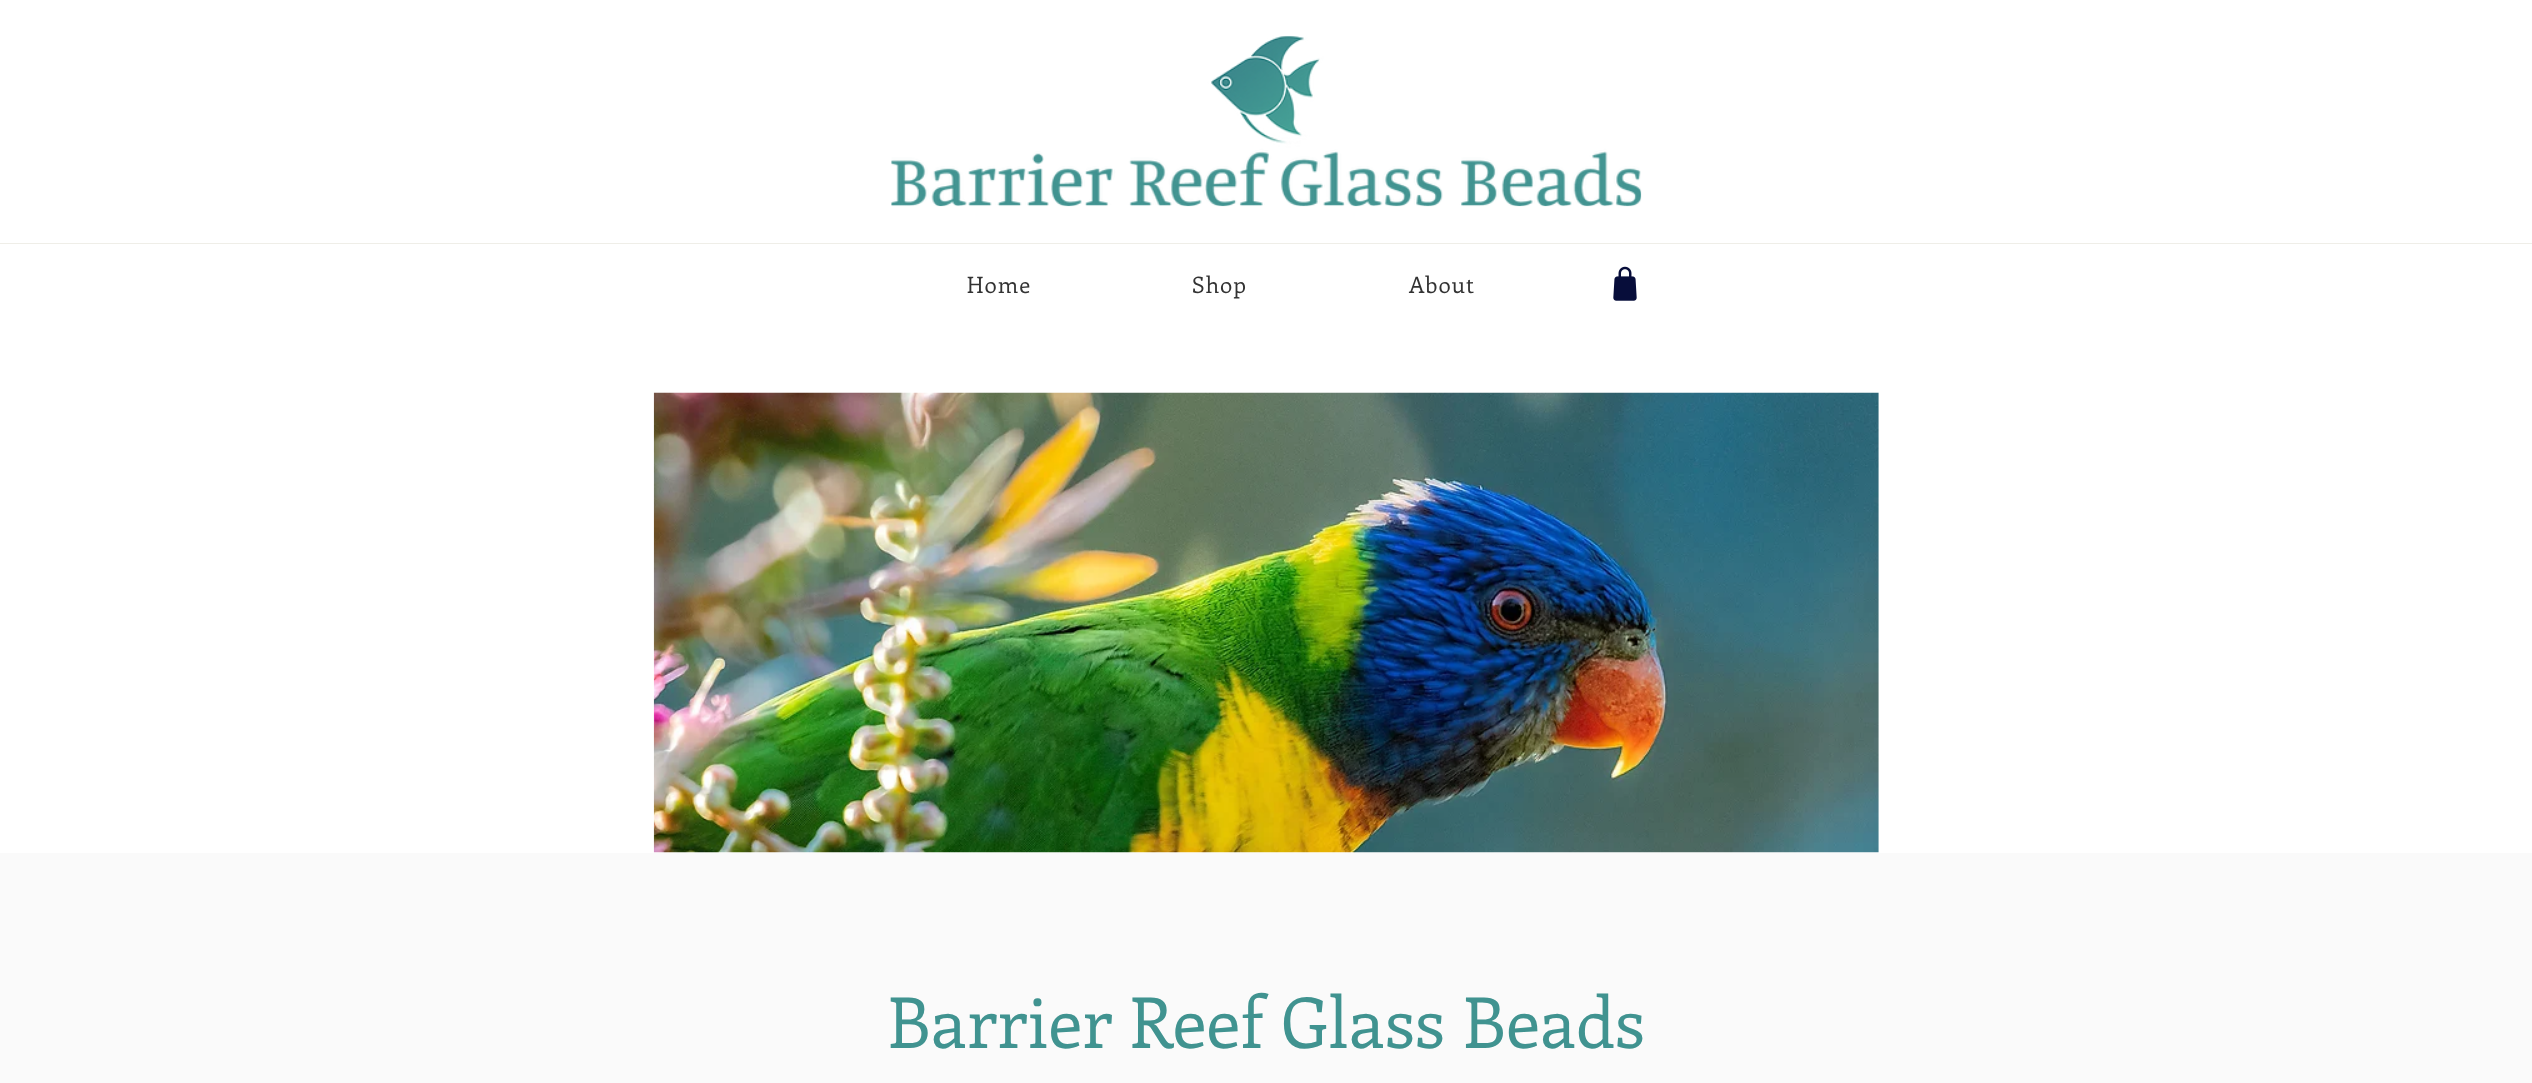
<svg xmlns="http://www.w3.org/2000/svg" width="2532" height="1083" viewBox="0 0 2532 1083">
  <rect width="100%" height="100%" fill="#ffffff"/>
  <image x="891" y="35" width="751" height="172" href="img1.png"/>
  <rect x="0" y="243" width="2532" height="1" fill="#efeee8"/>
  <text x="967" y="293" font-family="Enriqueta" font-size="22.5" letter-spacing="1" fill="#333333">Home</text>
  <text x="1192" y="293" font-family="Enriqueta" font-size="22.5" letter-spacing="1" fill="#333333">Shop</text>
  <text x="1409" y="293" font-family="Enriqueta" font-size="22.5" letter-spacing="1" fill="#333333">About</text>
  <image x="1613" y="266" width="24" height="35" href="img2.png"/>
  <image x="653" y="392" width="1226" height="461" href="img3.png"/>
  <rect x="0" y="853" width="2532" height="230" fill="#fafafa"/>
  <text x="887" y="1048" font-family="Enriqueta" font-size="70" fill="#409390">Barrier Reef Glass Beads</text>
</svg>
